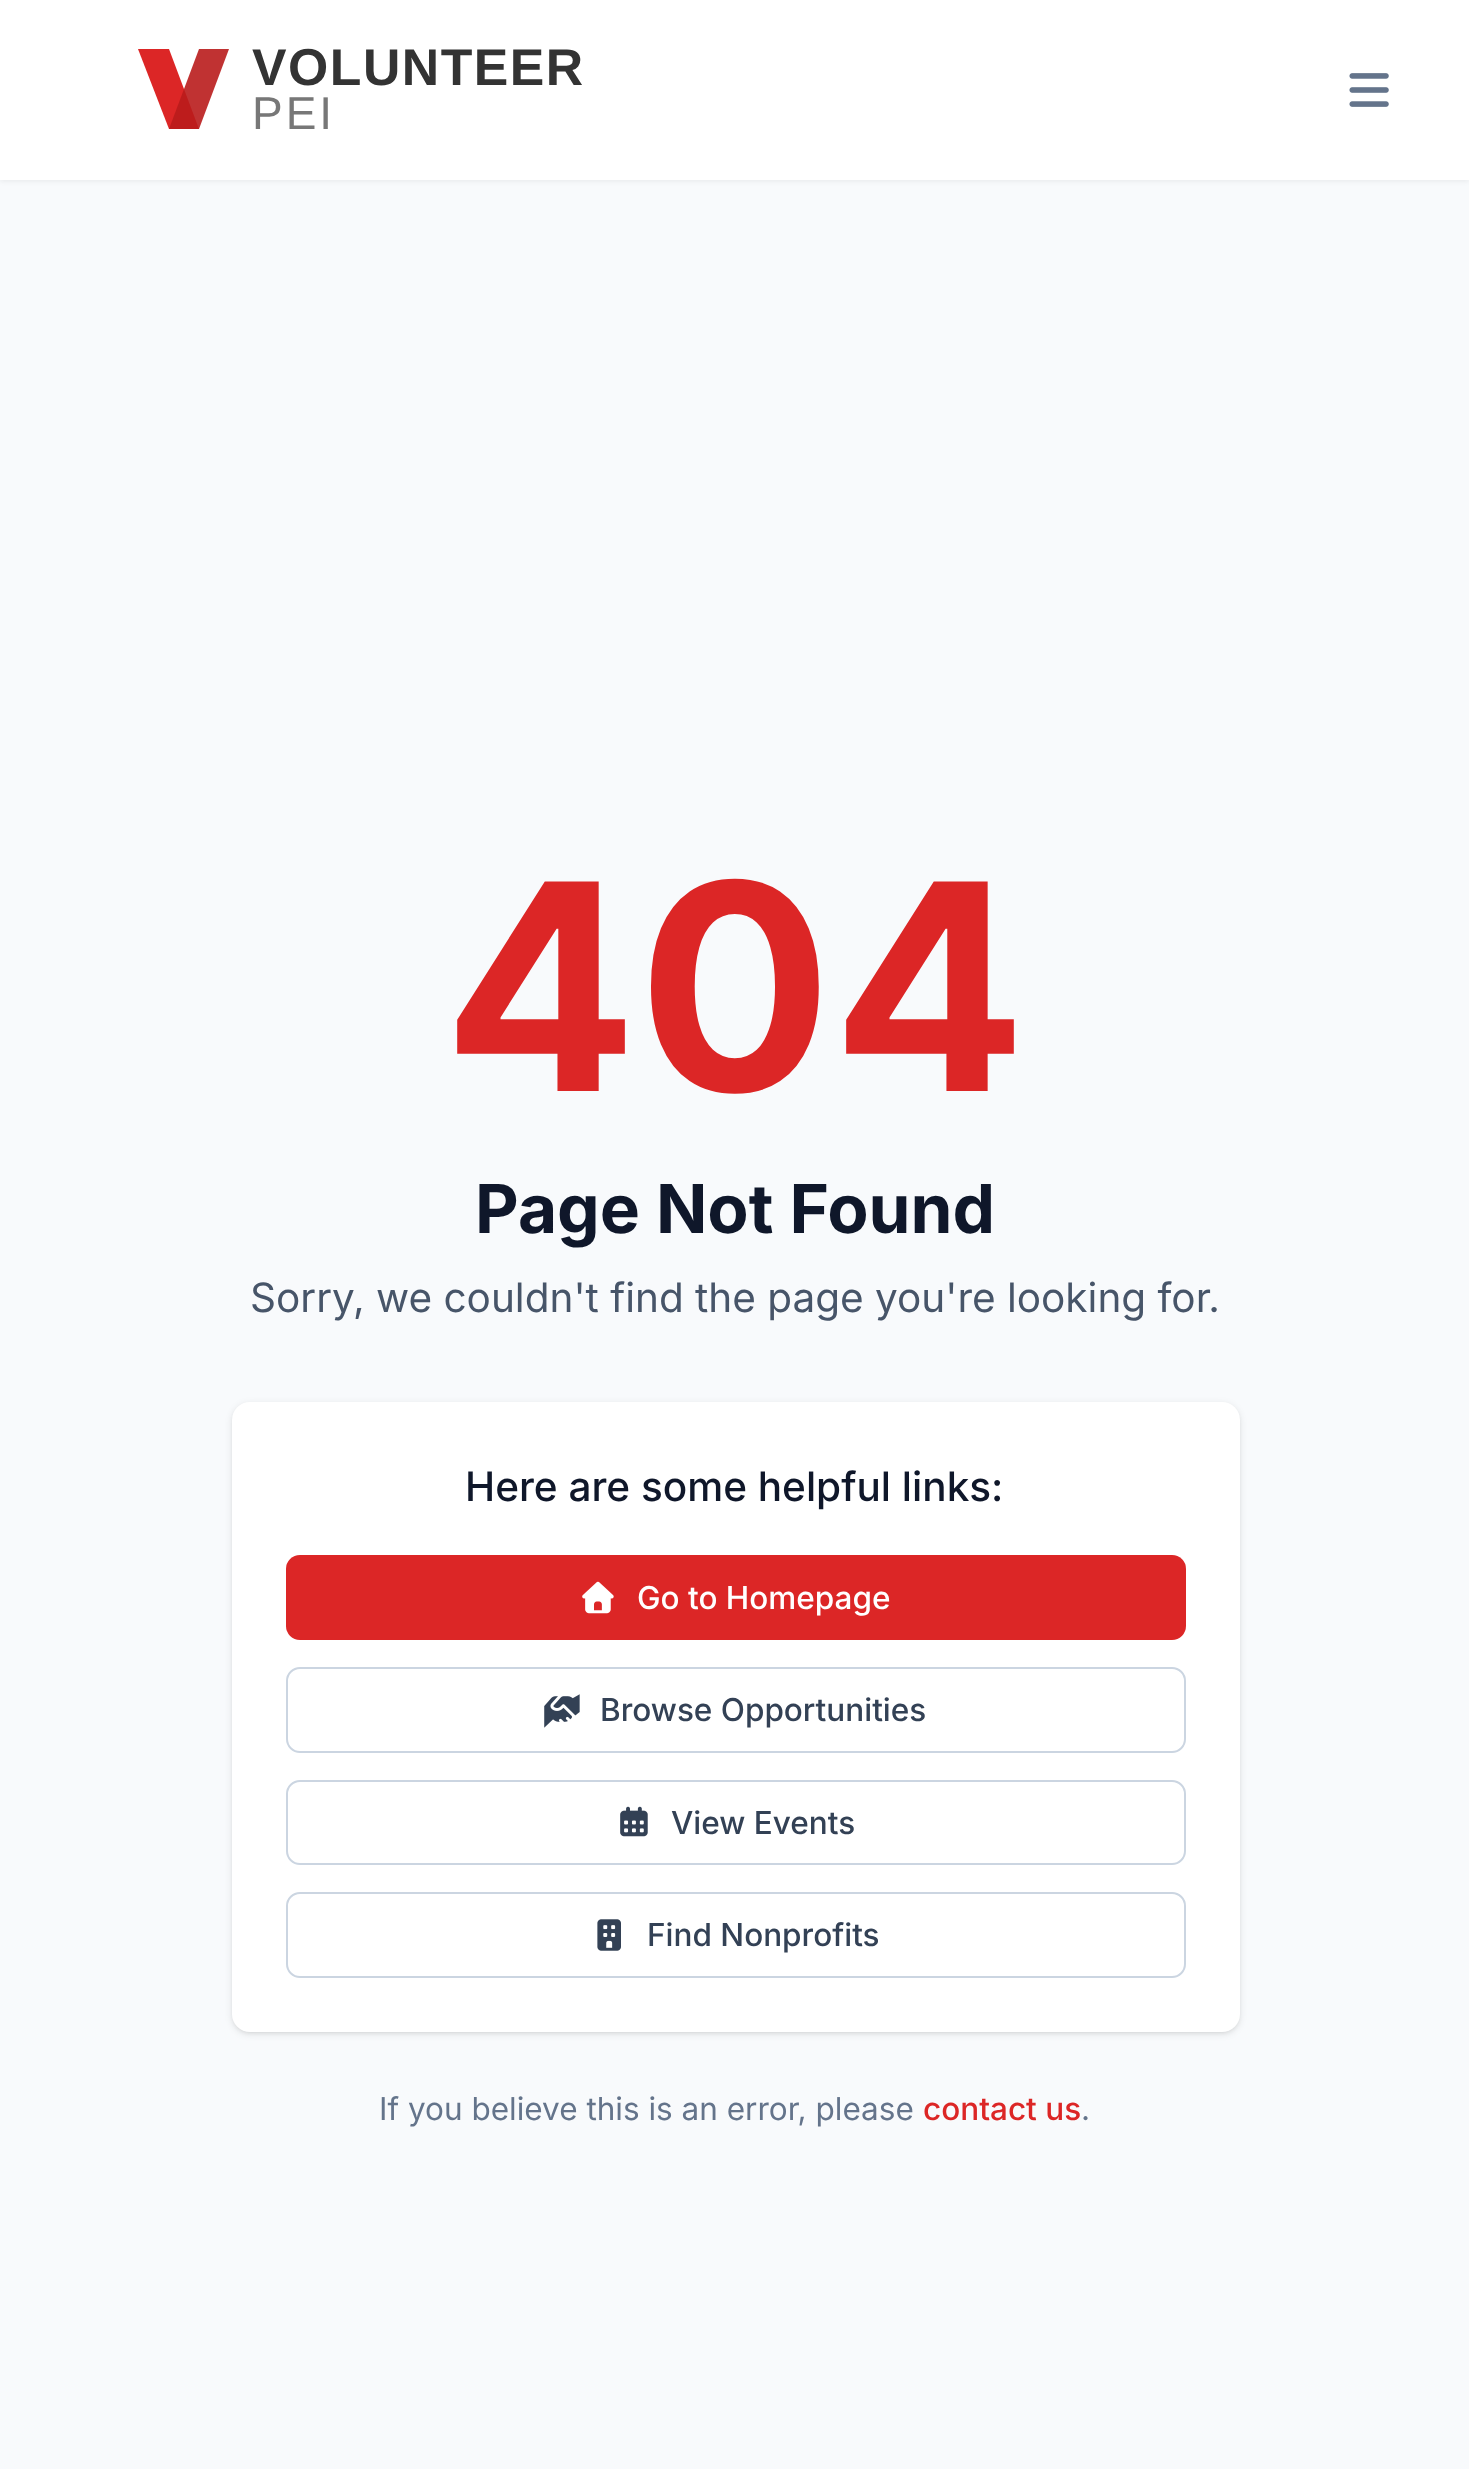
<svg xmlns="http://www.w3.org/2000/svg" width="1469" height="2469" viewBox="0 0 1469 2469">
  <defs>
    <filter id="blur1" x="-50%" y="-200%" width="200%" height="500%"><feGaussianBlur stdDeviation="2"/></filter>
    <filter id="blur2" x="-50%" y="-200%" width="200%" height="500%"><feGaussianBlur stdDeviation="3.5"/></filter>
  </defs>
  <rect width="100%" height="100%" fill="#f8fafc"/>
  <rect x="0" y="2" width="1469" height="180" fill="#000000" fill-opacity="0.05" filter="url(#blur1)"/>
  <rect x="0" y="0" width="1469" height="180" fill="#ffffff"/>
  <path d="M138 49H169L199 129H169Z" fill="#dc2626"/>
  <path d="M229 49L199 129H169L199 49Z" fill="#b91c1c" fill-opacity="0.9"/>
  <text x="252" y="85" font-family="Liberation Sans" font-size="51.75" font-weight="bold" letter-spacing="1.5" fill="#333333">VOLUNTEER</text>
  <text x="252" y="129" font-family="Liberation Sans" font-size="46" letter-spacing="3" fill="#777777">PEI</text>
  <image x="1349" y="73" width="40" height="34" href="img1.png"/>
  <text x="443" y="1091" font-family="Inter" font-size="288" font-weight="bold" fill="#dc2626">404</text>
  <text x="475" y="1233" font-family="Inter" font-size="67.5" font-weight="bold" fill="#0f172a">Page Not Found</text>
  <text x="250" y="1312" font-family="Inter" font-size="40.5" fill="#475569">Sorry, we couldn't find the page you're looking for.</text>
  <rect x="234" y="1406" width="1004" height="626" rx="16" fill="#000000" fill-opacity="0.1" filter="url(#blur1)"/>
  <rect x="232" y="1404" width="1008" height="630" rx="18" fill="#000000" fill-opacity="0.1" filter="url(#blur2)"/>
  <rect x="232" y="1402" width="1008" height="630" rx="18" fill="#ffffff"/>
  <text x="465" y="1501" font-family="Inter" font-size="40.5" font-weight="500" fill="#0f172a">Here are some helpful links:</text>
  <rect x="286" y="1555" width="900" height="85" rx="14" fill="#dc2626"/>
  <image x="582" y="1581" width="32" height="33" href="img2.png"/>
  <text x="637" y="1609" font-family="Inter" font-size="31.5" font-weight="500" fill="#ffffff">Go to Homepage</text>
  <rect x="287" y="1668" width="898" height="84" rx="13" fill="none" stroke="#cbd5e1" stroke-width="2"/>
  <image x="544" y="1694" width="36" height="34" href="img3.png"/>
  <text x="600" y="1721" font-family="Inter" font-size="31.5" font-weight="500" fill="#334155">Browse Opportunities</text>
  <rect x="287" y="1781" width="898" height="83" rx="13" fill="none" stroke="#cbd5e1" stroke-width="2"/>
  <image x="620" y="1806" width="28" height="31" href="img4.png"/>
  <text x="671" y="1834" font-family="Inter" font-size="31.5" font-weight="500" fill="#334155">View Events</text>
  <rect x="287" y="1893" width="898" height="84" rx="13" fill="none" stroke="#cbd5e1" stroke-width="2"/>
  <image x="597" y="1919" width="24" height="32" href="img5.png"/>
  <text x="647" y="1946" font-family="Inter" font-size="31.5" font-weight="500" fill="#334155">Find Nonprofits</text>
  <text x="379" y="2120" font-family="Inter" font-size="31.5" fill="#64748b">If you believe this is an error, please</text>
  <text x="923" y="2120" font-family="Inter" font-size="31.5" font-weight="500" fill="#dc2626">contact us</text>
  <text x="1081" y="2120" font-family="Inter" font-size="31.5" fill="#64748b">.</text>
</svg>
